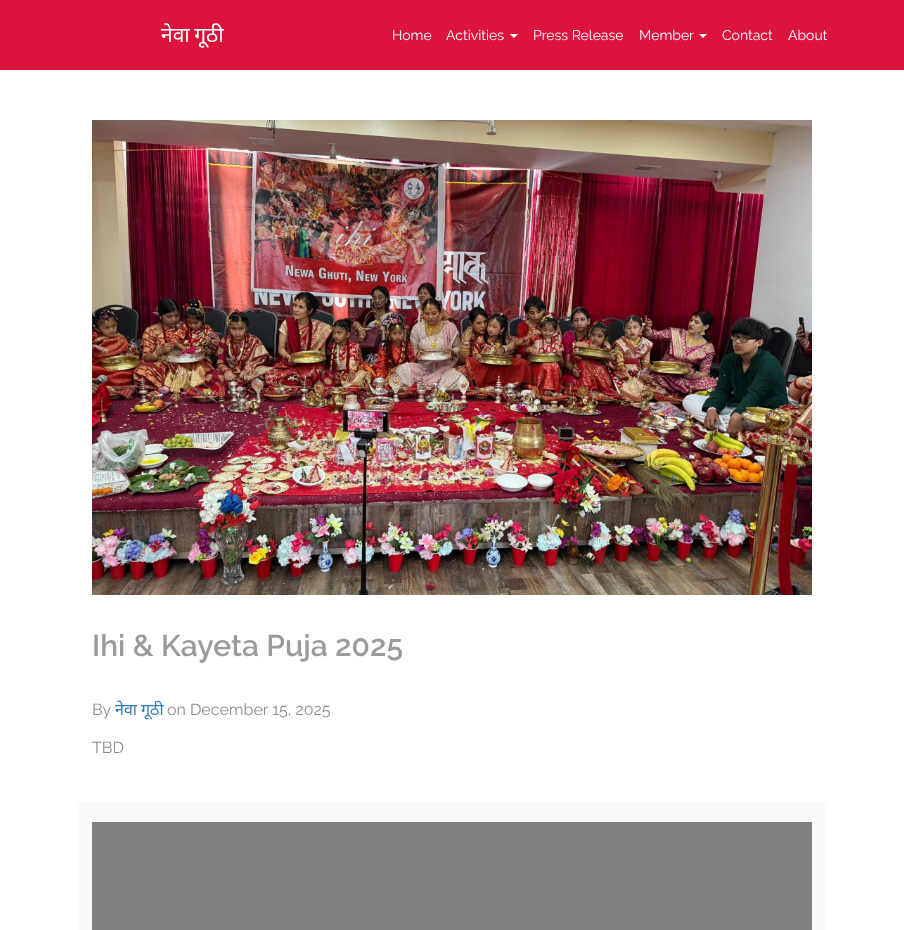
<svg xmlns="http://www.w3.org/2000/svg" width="904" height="930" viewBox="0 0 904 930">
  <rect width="100%" height="100%" fill="#ffffff"/>
  <rect x="0" y="0" width="904" height="70" fill="#dc143c"/>
  <text x="161" y="42" word-spacing="-1" font-family="Noto Sans" font-size="21" fill="#ffffff">नेवा गूठी</text>
  <text x="392" y="40" font-family="Raleway" font-size="14" fill="#ffffff">Home</text>
  <text x="446" y="40" font-family="Raleway" font-size="14" fill="#ffffff">Activities</text>
  <path d="M510 34H518L514 38Z" fill="#ffffff"/>
  <text x="533" y="40" font-family="Raleway" font-size="14" fill="#ffffff">Press Release</text>
  <text x="639" y="40" font-family="Raleway" font-size="14" fill="#ffffff">Member</text>
  <path d="M699 34H707L703 38Z" fill="#ffffff"/>
  <text x="722" y="40" font-family="Raleway" font-size="14" fill="#ffffff">Contact</text>
  <text x="788" y="40" font-family="Raleway" font-size="14" fill="#ffffff">About</text>
  <image x="92" y="120" width="720" height="475" href="img1.png"/>
  <text x="92" y="656" font-family="Raleway" font-size="30" font-weight="600" fill="#9b9b9b">Ihi &amp; Kayeta Puja 2025</text>
  <text x="92" y="715" font-family="Raleway" font-size="16" fill="#8c8c8c">By</text>
  <text x="115" y="715" font-family="Noto Sans" font-size="16" fill="#337ab7">नेवा गूठी</text>
  <text x="167" y="715" font-family="Raleway" font-size="16" fill="#8c8c8c">on December 15, 2025</text>
  <text x="92" y="753" font-family="Raleway" font-size="16" fill="#8c8c8c">TBD</text>
  <rect x="77" y="802" width="750" height="128" fill="#f8fafb"/>
  <rect x="92" y="822" width="720" height="108" fill="#808080"/>
</svg>
